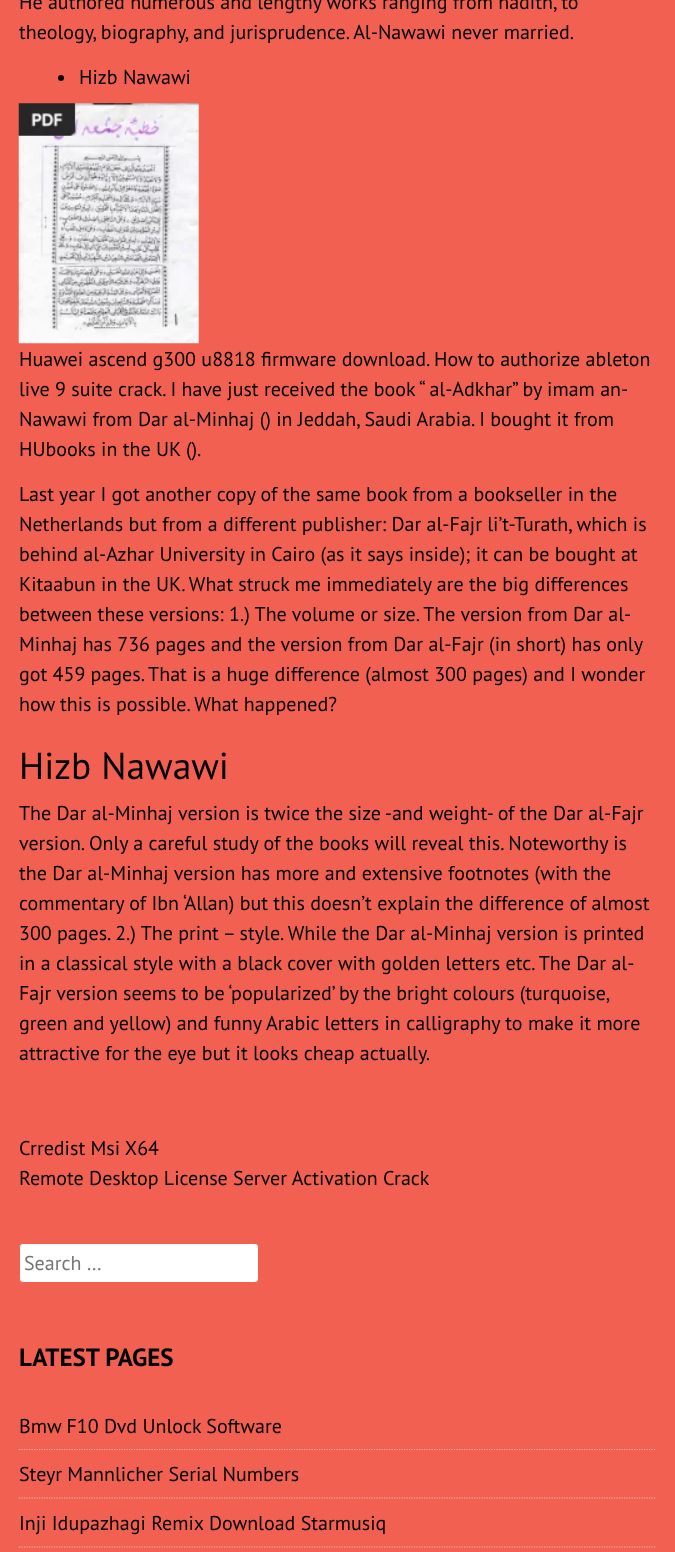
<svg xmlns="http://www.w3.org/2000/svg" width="675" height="1552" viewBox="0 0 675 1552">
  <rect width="100%" height="100%" fill="#f26052"/>
  <text x="19" y="9" font-family="PT Sans" font-size="20" fill="#000000">He authored numerous and lengthy works ranging from hadith, to</text>
  <text x="19" y="39" font-family="PT Sans" font-size="20" fill="#000000">theology, biography, and jurisprudence. Al-Nawawi never married.</text>
  <circle cx="61" cy="78" r="3" fill="#000000"/>
  <text x="79" y="84" font-family="PT Sans" font-size="20" fill="#000000">Hizb Nawawi</text>
  <image x="18" y="103" width="181" height="241" href="img1.png"/>
  <text x="19" y="366" font-family="PT Sans" font-size="20" fill="#000000">Huawei ascend g300 u8818 firmware download. How to authorize ableton</text>
  <text x="19" y="396" font-family="PT Sans" font-size="20" fill="#000000">live 9 suite crack. I have just received the book “ al-Adkhar” by imam an-</text>
  <text x="19" y="426" font-family="PT Sans" font-size="20" fill="#000000">Nawawi from Dar al-Minhaj () in Jeddah, Saudi Arabia. I bought it from</text>
  <text x="19" y="456" font-family="PT Sans" font-size="20" fill="#000000">HUbooks in the UK ().</text>
  <text x="19" y="501" font-family="PT Sans" font-size="20" fill="#000000">Last year I got another copy of the same book from a bookseller in the</text>
  <text x="19" y="531" font-family="PT Sans" font-size="20" fill="#000000">Netherlands but from a different publisher: Dar al-Fajr li’t-Turath, which is</text>
  <text x="19" y="561" font-family="PT Sans" font-size="20" fill="#000000">behind al-Azhar University in Cairo (as it says inside); it can be bought at</text>
  <text x="19" y="591" font-family="PT Sans" font-size="20" fill="#000000">Kitaabun in the UK. What struck me immediately are the big differences</text>
  <text x="19" y="621" font-family="PT Sans" font-size="20" fill="#000000">between these versions: 1.) The volume or size. The version from Dar al-</text>
  <text x="19" y="651" font-family="PT Sans" font-size="20" fill="#000000">Minhaj has 736 pages and the version from Dar al-Fajr (in short) has only</text>
  <text x="19" y="681" font-family="PT Sans" font-size="20" fill="#000000">got 459 pages. That is a huge difference (almost 300 pages) and I wonder</text>
  <text x="19" y="711" font-family="PT Sans" font-size="20" fill="#000000">how this is possible. What happened?</text>
  <text x="19" y="779" font-family="PT Sans" font-size="37.5" fill="#000000">Hizb Nawawi</text>
  <text x="19" y="820" font-family="PT Sans" font-size="20" fill="#000000">The Dar al-Minhaj version is twice the size -and weight- of the Dar al-Fajr</text>
  <text x="19" y="850" font-family="PT Sans" font-size="20" fill="#000000">version. Only a careful study of the books will reveal this. Noteworthy is</text>
  <text x="19" y="880" font-family="PT Sans" font-size="20" fill="#000000">the Dar al-Minhaj version has more and extensive footnotes (with the</text>
  <text x="19" y="910" font-family="PT Sans" font-size="20" fill="#000000">commentary of Ibn ‘Allan) but this doesn’t explain the difference of almost</text>
  <text x="19" y="940" font-family="PT Sans" font-size="20" fill="#000000">300 pages. 2.) The print – style. While the Dar al-Minhaj version is printed</text>
  <text x="19" y="970" font-family="PT Sans" font-size="20" fill="#000000">in a classical style with a black cover with golden letters etc. The Dar al-</text>
  <text x="19" y="1000" word-spacing="-0.25" font-family="PT Sans" font-size="20" fill="#000000">Fajr version seems to be ‘popularized’ by the bright colours (turquoise,</text>
  <text x="19" y="1030" font-family="PT Sans" font-size="20" fill="#000000">green and yellow) and funny Arabic letters in calligraphy to make it more</text>
  <text x="19" y="1060" font-family="PT Sans" font-size="20" fill="#000000">attractive for the eye but it looks cheap actually.</text>
  <text x="19" y="1155" font-family="PT Sans" font-size="20" fill="#000000">Crredist Msi X64</text>
  <text x="19" y="1185" font-family="PT Sans" font-size="20" fill="#000000">Remote Desktop License Server Activation Crack</text>
  <rect x="19.5" y="1243.5" width="239" height="39" rx="3.5" fill="#ffffff" stroke="#f26052"/>
  <text x="24" y="1270" font-family="PT Sans" font-size="20" fill="#757575">Search …</text>
  <text x="19" y="1366" font-family="PT Sans" font-size="25" font-weight="bold" fill="#000000">LATEST PAGES</text>
  <path d="M19 1449.5H656" fill="none" stroke="#f2b4ae" stroke-width="1.2" stroke-dasharray="1.25 1.25"/>
  <text x="19" y="1433" font-family="PT Sans" font-size="20" fill="#000000">Bmw F10 Dvd Unlock Software</text>
  <path d="M19 1498H656" fill="none" stroke="#f2b4ae" stroke-width="1.2" stroke-dasharray="1.25 1.25"/>
  <text x="19" y="1481" font-family="PT Sans" font-size="20" fill="#000000">Steyr Mannlicher Serial Numbers</text>
  <path d="M19 1547H656" fill="none" stroke="#f2b4ae" stroke-width="1.2" stroke-dasharray="1.25 1.25"/>
  <text x="19" y="1530" font-family="PT Sans" font-size="20" fill="#000000">Inji Idupazhagi Remix Download Starmusiq</text>
</svg>
